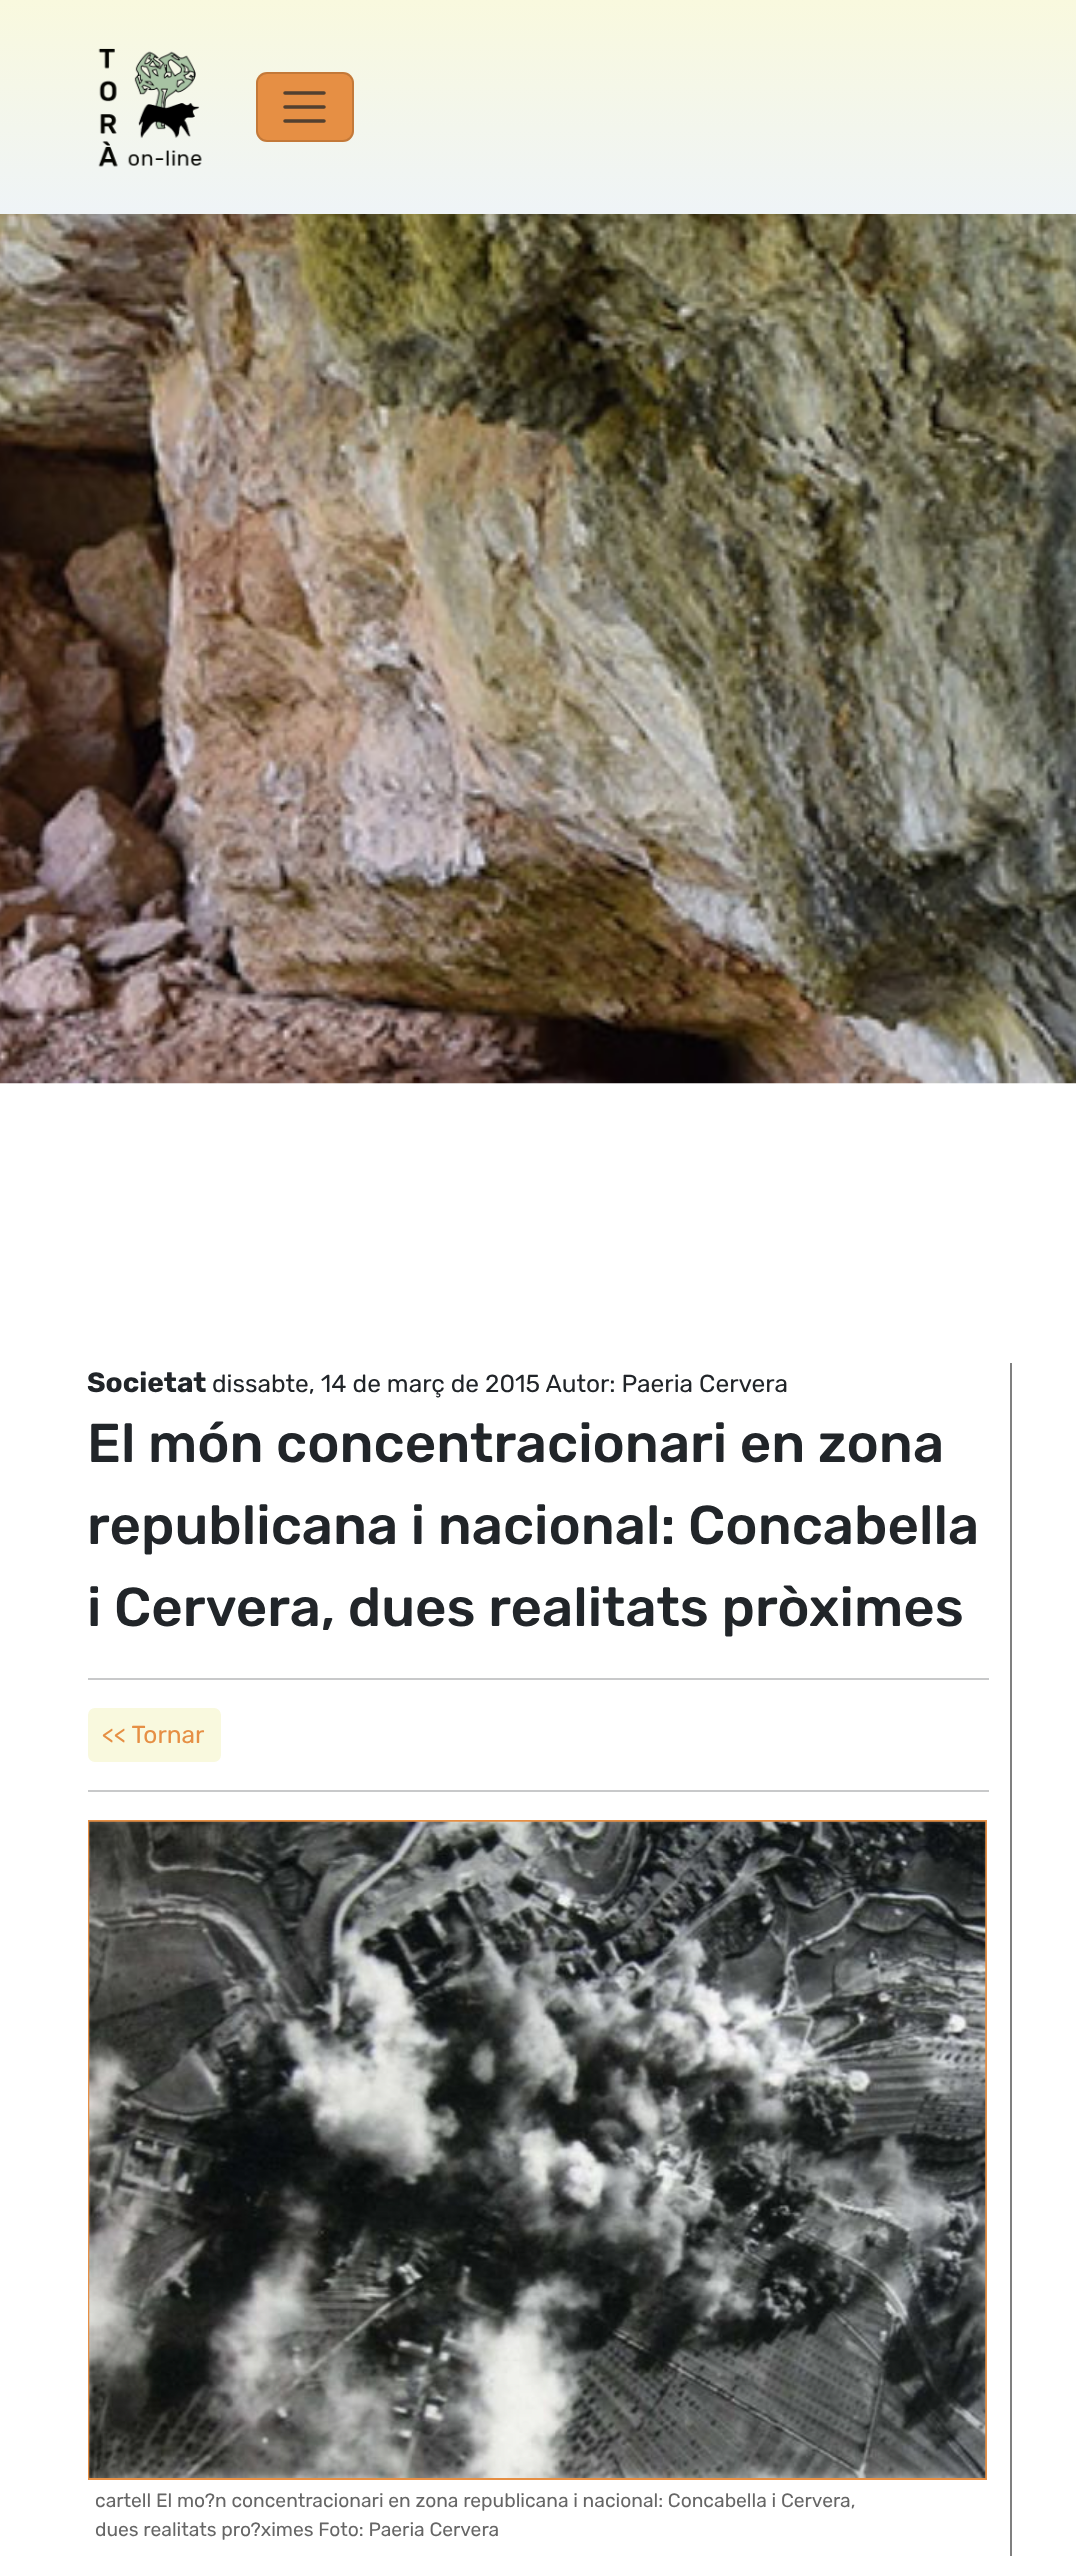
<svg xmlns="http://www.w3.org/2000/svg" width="1076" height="2556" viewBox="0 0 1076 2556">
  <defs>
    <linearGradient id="g1" gradientUnits="userSpaceOnUse" x1="538" y1="0" x2="538" y2="214"><stop offset="0" stop-color="#f9f9de"/><stop offset="1" stop-color="#eff4f7"/></linearGradient>
  </defs>
  <rect width="100%" height="100%" fill="#ffffff"/>
  <rect x="0" y="0" width="1076" height="214" fill="url(#g1)"/>
  <image x="98" y="48" width="104" height="119" href="img1.png"/>
  <rect x="256" y="72" width="98" height="70" rx="11" fill="#e68f44"/>
  <rect x="257" y="73" width="96" height="68" rx="10" fill="none" stroke="#000000" stroke-opacity="0.15" stroke-width="2"/>
  <path d="M285 93H324M285 107H324M285 121H324" fill="none" stroke="#524030" stroke-width="3.5" stroke-linecap="round"/>
  <image x="0" y="214" width="1076" height="870" href="img2.png"/>
  <rect x="1010" y="1363" width="2" height="1193" fill="#808080"/>
  <text x="87" y="1392" font-family="Rubik" font-size="28" font-weight="bold" fill="#212529">Societat</text>
  <text x="212" y="1392" font-family="Rubik" font-size="24.5" fill="#212529">dissabte, 14 de març de 2015 Autor: Paeria Cervera</text>
  <text x="87" y="1462" font-family="Rubik" font-size="54.6" font-weight="500" fill="#212529">El món concentracionari en zona</text>
  <text x="87" y="1544" font-family="Rubik" font-size="54.6" font-weight="500" fill="#212529">republicana i nacional: Concabella</text>
  <text x="87" y="1626" font-family="Rubik" font-size="54.6" font-weight="500" fill="#212529">i Cervera, dues realitats pròximes</text>
  <rect x="88" y="1678" width="901" height="2" fill="#c8c9ca"/>
  <rect x="89" y="1709" width="131" height="52" rx="6" fill="#f9f9de" stroke="#f9f9de" stroke-width="2"/>
  <text x="102" y="1743" font-family="Rubik" font-size="24.5" fill="#e68f44">&lt;&lt; Tornar</text>
  <rect x="88" y="1790" width="901" height="2" fill="#c8c9ca"/>
  <rect x="89" y="1821" width="897" height="658" fill="none" stroke="#e68f44" stroke-width="2"/>
  <image x="89" y="1821" width="897" height="657" href="img3.png"/>
  <text x="95" y="2507" font-family="Rubik" font-size="19.25" fill="#666666">cartell El mo?n concentracionari en zona republicana i nacional: Concabella i Cervera,</text>
  <text x="95" y="2536" font-family="Rubik" font-size="19.25" fill="#666666">dues realitats pro?ximes Foto: Paeria Cervera</text>
</svg>
